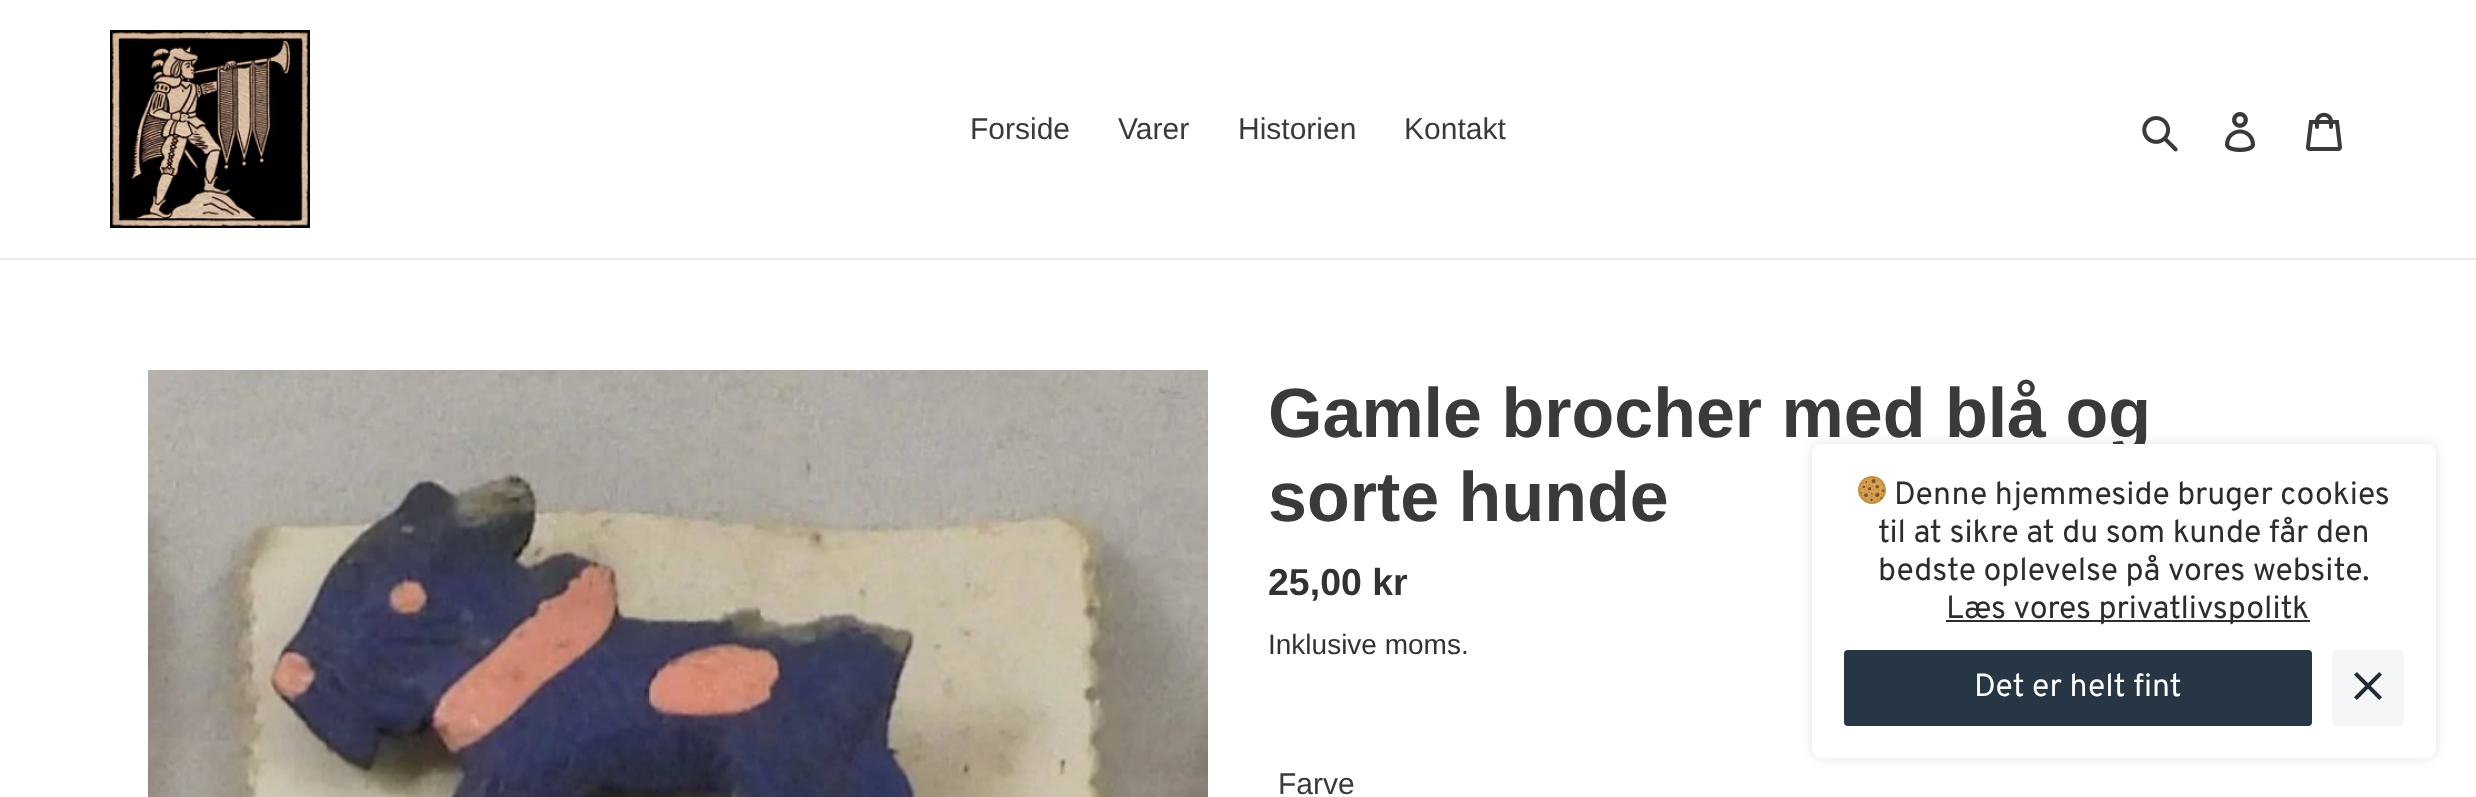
<svg xmlns="http://www.w3.org/2000/svg" width="2476" height="797" viewBox="0 0 2476 797">
  <defs>
    <clipPath id="clip1"><path d="M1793 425H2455V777H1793ZM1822 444H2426C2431.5 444 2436 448.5 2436 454V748C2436 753.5 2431.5 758 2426 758H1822C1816.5 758 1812 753.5 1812 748V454C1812 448.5 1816.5 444 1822 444Z" clip-rule="evenodd"/></clipPath>
    <filter id="blur1" x="-50%" y="-200%" width="200%" height="500%"><feGaussianBlur stdDeviation="6"/></filter>
  </defs>
  <rect width="100%" height="100%" fill="#ffffff"/>
  <rect x="0" y="258" width="2476" height="2" fill="#ebebeb"/>
  <image x="110" y="30" width="200" height="198" href="img1.png"/>
  <text x="970" y="139" font-family="Liberation Sans" font-size="30" fill="#3a3a3a">Forside</text>
  <text x="1118" y="139" font-family="Liberation Sans" font-size="30" fill="#3a3a3a">Varer</text>
  <text x="1238" y="139" font-family="Liberation Sans" font-size="30" fill="#3a3a3a">Historien</text>
  <text x="1404" y="139" font-family="Liberation Sans" font-size="30" fill="#3a3a3a">Kontakt</text>
  <image x="2142" y="116" width="36" height="36" href="img2.png"/>
  <image x="2225" y="112" width="31" height="40" href="img3.png"/>
  <image x="2306" y="112" width="36" height="39" href="img4.png"/>
  <image x="148" y="370" width="1060" height="427" href="img5.png"/>
  <text x="1268" y="437" font-family="Liberation Sans" font-size="70" font-weight="bold" fill="#3a3a3a">Gamle brocher med blå og</text>
  <text x="1268" y="521" font-family="Liberation Sans" font-size="70" font-weight="bold" fill="#3a3a3a">sorte hunde</text>
  <text x="1268" y="595" font-family="Liberation Sans" font-size="37.5" font-weight="bold" fill="#333232">25,00 kr</text>
  <text x="1268" y="654" font-family="Liberation Sans" font-size="28" fill="#333232">Inklusive moms.</text>
  <text x="1278" y="794" font-family="Liberation Sans" font-size="30" fill="#3a3a3a">Farve</text>
  <rect x="1812" y="444" width="624" height="314" rx="10" fill="#ffffff"/>
  <g clip-path="url(#clip1)">
    <rect x="1812" y="444" width="624" height="314" rx="10" fill="#000000" fill-opacity="0.12" filter="url(#blur1)"/>
  </g>
  <image x="1858" y="476" width="28" height="28" href="img6.png"/>
  <text x="1894" y="504" font-family="Overpass" font-size="32" fill="#2d2d2d">Denne hjemmeside bruger cookies</text>
  <text x="1878" y="542" font-family="Overpass" font-size="32" fill="#2d2d2d">til at sikre at du som kunde får den</text>
  <text x="1878" y="580" font-family="Overpass" font-size="32" fill="#2d2d2d">bedste oplevelse på vores website.</text>
  <rect x="1946" y="620" width="364" height="2" fill="#2d2d2d"/>
  <text x="1946" y="618" font-family="Overpass" font-size="32" fill="#2d2d2d">Læs vores privatlivspolitk</text>
  <rect x="1844" y="650" width="468" height="76" rx="4" fill="#263644"/>
  <text x="1974" y="696" font-family="Overpass" font-size="32" fill="#ffffff">Det er helt fint</text>
  <rect x="2332" y="650" width="72" height="76" rx="4" fill="#f4f6f8"/>
  <image x="2354" y="672" width="28" height="28" href="img7.png"/>
</svg>
